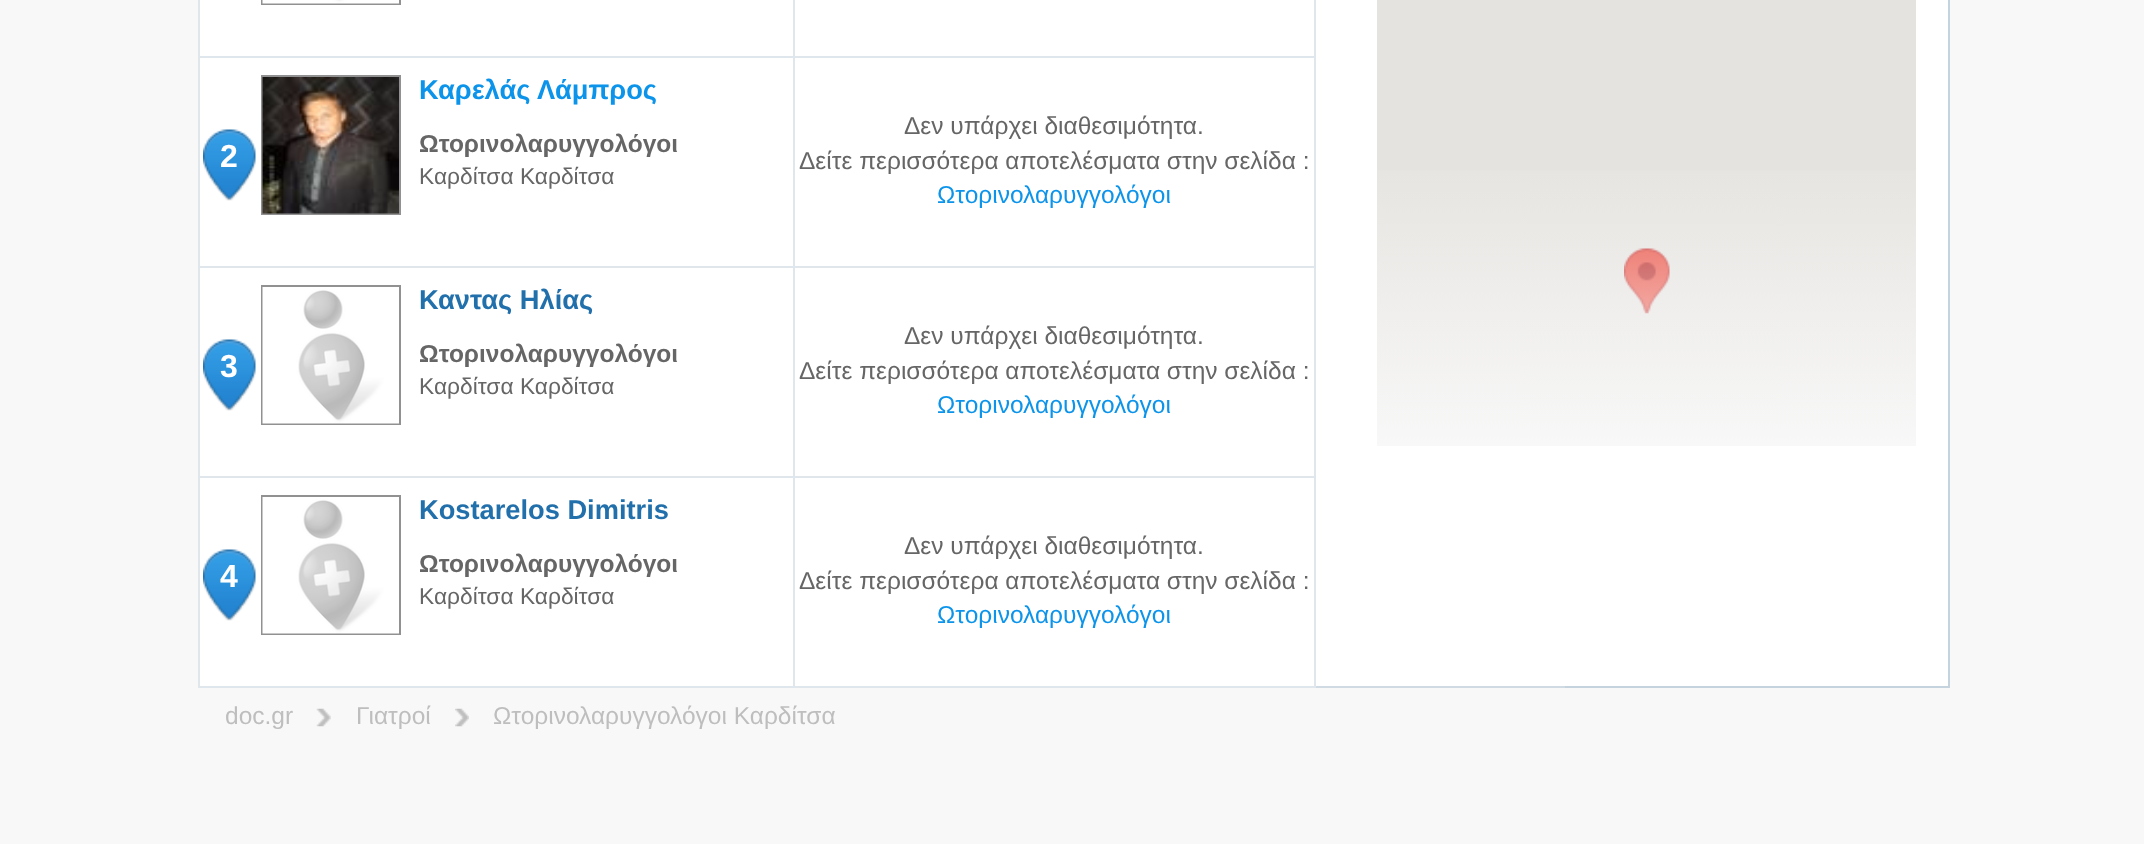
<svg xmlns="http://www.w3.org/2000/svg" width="2144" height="844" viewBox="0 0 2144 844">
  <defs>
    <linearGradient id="g1" gradientUnits="userSpaceOnUse" x1="1647" y1="-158" x2="1647" y2="446"><stop offset="0" stop-color="#000000" stop-opacity="0"/><stop offset="0.5" stop-color="#f8f8f8" stop-opacity="0"/><stop offset="1" stop-color="#f8f8f8"/></linearGradient>
  </defs>
  <rect width="100%" height="100%" fill="#f8f8f8"/>
  <rect x="199" y="-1" width="1750" height="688" fill="#ffffff" stroke="#c4d3de" stroke-width="2"/>
  <rect x="262" y="-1" width="138" height="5" fill="none" stroke="#919191" stroke-width="2"/>
  <image x="262" y="0" width="137" height="4" href="img1.png"/>
  <rect x="793" y="56" width="523" height="2" fill="#e0e7ec"/>
  <rect x="793" y="266" width="523" height="2" fill="#e0e7ec"/>
  <rect x="793" y="476" width="523" height="2" fill="#e0e7ec"/>
  <rect x="1314" y="476" width="2" height="212" fill="#e0e7ec"/>
  <rect x="793" y="686" width="523" height="2" fill="#e0e7ec"/>
  <rect x="793" y="476" width="2" height="212" fill="#e0e7ec"/>
  <rect x="198" y="476" width="597" height="2" fill="#e0e7ec"/>
  <rect x="793" y="266" width="2" height="212" fill="#e0e7ec"/>
  <rect x="198" y="266" width="597" height="2" fill="#e0e7ec"/>
  <rect x="793" y="56" width="2" height="212" fill="#e0e7ec"/>
  <rect x="198" y="56" width="597" height="2" fill="#e0e7ec"/>
  <rect x="793" y="0" width="2" height="58" fill="#e0e7ec"/>
  <rect x="198" y="686" width="597" height="2" fill="#e0e7ec"/>
  <rect x="198" y="476" width="2" height="212" fill="#e0e7ec"/>
  <rect x="198" y="266" width="2" height="212" fill="#e0e7ec"/>
  <rect x="198" y="0" width="2" height="268" fill="#e0e7ec"/>
  <image x="203" y="129" width="53" height="72" href="img2.png"/>
  <text x="220" y="167" font-family="Liberation Sans" font-size="32" font-weight="bold" fill="#ffffff">2</text>
  <rect x="262" y="76" width="138" height="138" fill="none" stroke="#919191" stroke-width="2"/>
  <image x="262" y="77" width="137" height="137" href="img3.png"/>
  <text x="419" y="99" font-family="Liberation Sans" font-size="27.25" font-weight="bold" fill="#0c94eb">Καρελάς Λάμπρος</text>
  <text x="419" y="152" font-family="Liberation Sans" font-size="24.5" font-weight="bold" fill="#666666">Ωτορινολαρυγγολόγοι</text>
  <text x="419" y="184" font-family="Liberation Sans" font-size="22.75" fill="#666666">Καρδίτσα Καρδίτσα</text>
  <rect x="1314" y="266" width="2" height="212" fill="#e0e7ec"/>
  <rect x="1314" y="0" width="2" height="268" fill="#e0e7ec"/>
  <text x="904" y="134" font-family="Liberation Sans" font-size="24.5" fill="#666666">Δεν υπάρχει διαθεσιμότητα.</text>
  <text x="799" y="169" font-family="Liberation Sans" font-size="24.5" fill="#666666">Δείτε περισσότερα αποτελέσματα στην σελίδα :</text>
  <text x="937" y="203" font-family="Liberation Sans" font-size="24.5" fill="#0c94eb">Ωτορινολαρυγγολόγοι</text>
  <image x="203" y="339" width="53" height="72" href="img2.png"/>
  <text x="220" y="377" font-family="Liberation Sans" font-size="32" font-weight="bold" fill="#ffffff">3</text>
  <rect x="262" y="286" width="138" height="138" fill="none" stroke="#919191" stroke-width="2"/>
  <image x="262" y="287" width="137" height="137" href="img4.png"/>
  <text x="419" y="309" font-family="Liberation Sans" font-size="27.25" font-weight="bold" fill="#2270ab">Καντας Ηλίας</text>
  <text x="419" y="362" font-family="Liberation Sans" font-size="24.5" font-weight="bold" fill="#666666">Ωτορινολαρυγγολόγοι</text>
  <text x="419" y="394" font-family="Liberation Sans" font-size="22.75" fill="#666666">Καρδίτσα Καρδίτσα</text>
  <text x="904" y="344" font-family="Liberation Sans" font-size="24.5" fill="#666666">Δεν υπάρχει διαθεσιμότητα.</text>
  <text x="799" y="379" font-family="Liberation Sans" font-size="24.5" fill="#666666">Δείτε περισσότερα αποτελέσματα στην σελίδα :</text>
  <text x="937" y="413" font-family="Liberation Sans" font-size="24.5" fill="#0c94eb">Ωτορινολαρυγγολόγοι</text>
  <image x="203" y="549" width="53" height="72" href="img2.png"/>
  <text x="220" y="587" font-family="Liberation Sans" font-size="32" font-weight="bold" fill="#ffffff">4</text>
  <rect x="262" y="496" width="138" height="138" fill="none" stroke="#919191" stroke-width="2"/>
  <image x="262" y="497" width="137" height="137" href="img4.png"/>
  <text x="419" y="519" font-family="Liberation Sans" font-size="27.25" font-weight="bold" fill="#2270ab">Kostarelos Dimitris</text>
  <text x="419" y="572" font-family="Liberation Sans" font-size="24.5" font-weight="bold" fill="#666666">Ωτορινολαρυγγολόγοι</text>
  <text x="419" y="604" font-family="Liberation Sans" font-size="22.75" fill="#666666">Καρδίτσα Καρδίτσα</text>
  <text x="904" y="554" font-family="Liberation Sans" font-size="24.5" fill="#666666">Δεν υπάρχει διαθεσιμότητα.</text>
  <text x="799" y="589" font-family="Liberation Sans" font-size="24.5" fill="#666666">Δείτε περισσότερα αποτελέσματα στην σελίδα :</text>
  <text x="937" y="623" font-family="Liberation Sans" font-size="24.5" fill="#0c94eb">Ωτορινολαρυγγολόγοι</text>
  <rect x="1377" y="0" width="539" height="444" fill="#e5e3df"/>
  <image x="1624" y="248" width="46" height="66" href="img5.png"/>
  <rect x="1377" y="170" width="539" height="276" fill="url(#g1)"/>
  <rect x="1316" y="686" width="249" height="2" fill="#e0e7ec" fill-opacity="0.4"/>
  <text x="225" y="724" font-family="Liberation Sans" font-size="24.5" fill="#bebebe">doc.gr</text>
  <image x="316" y="708" width="15" height="19" href="img6.png"/>
  <text x="356" y="724" font-family="Liberation Sans" font-size="24.5" fill="#bebebe">Γιατροί</text>
  <image x="455" y="708" width="14" height="19" href="img7.png"/>
  <text x="493" y="724" font-family="Liberation Sans" font-size="24.5" fill="#bebebe">Ωτορινολαρυγγολόγοι Καρδίτσα</text>
</svg>
